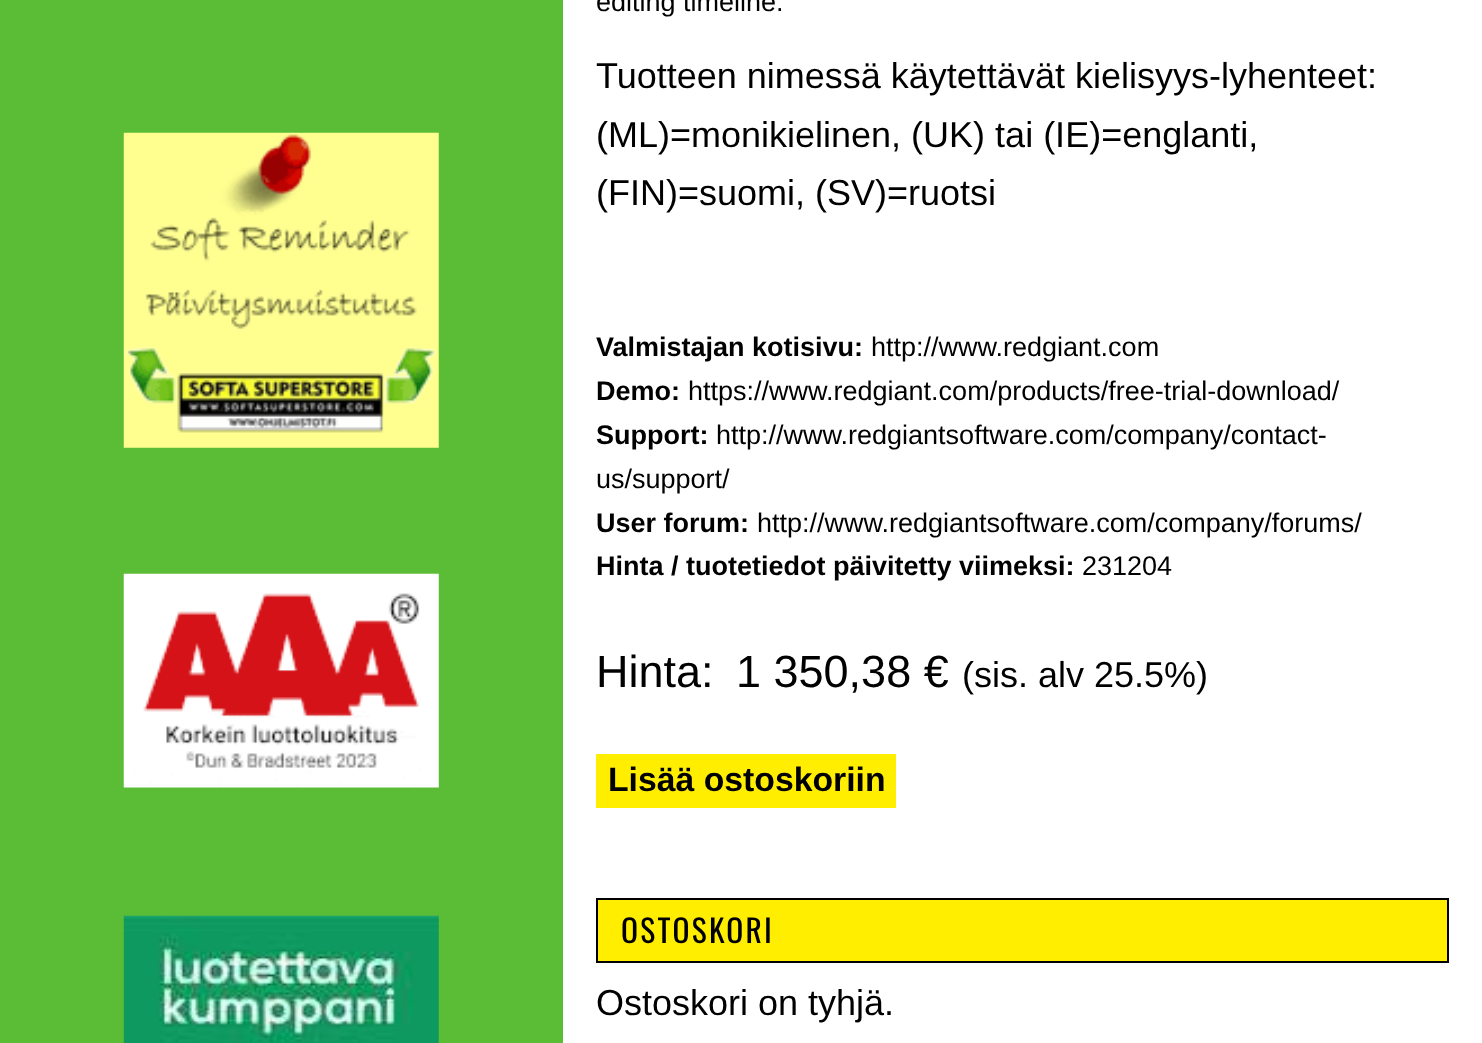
<svg xmlns="http://www.w3.org/2000/svg" width="1482" height="1043" viewBox="0 0 1482 1043">
  <rect width="100%" height="100%" fill="#ffffff"/>
  <rect x="0" y="0" width="563" height="1043" fill="#5bbc36"/>
  <image x="123" y="132" width="316" height="316" href="img1.png"/>
  <image x="123" y="573" width="316" height="215" href="img2.png"/>
  <image x="123" y="915" width="316" height="128" href="img3.png"/>
  <text x="596" y="11" font-family="Liberation Sans" font-size="27" fill="#000000">editing timeline.</text>
  <text x="596" y="88" font-family="Liberation Sans" font-size="36" fill="#000000">Tuotteen nimessä käytettävät kielisyys-lyhenteet:</text>
  <text x="596" y="147" font-family="Liberation Sans" font-size="36" fill="#000000">(ML)=monikielinen, (UK) tai (IE)=englanti,</text>
  <text x="596" y="205" font-family="Liberation Sans" font-size="36" fill="#000000">(FIN)=suomi, (SV)=ruotsi</text>
  <text x="596" y="356" font-family="Liberation Sans" font-size="27" font-weight="bold" fill="#000000">Valmistajan kotisivu:</text>
  <text x="871" y="356" font-family="Liberation Sans" font-size="27" fill="#000000">http://www.redgiant.com</text>
  <text x="596" y="400" font-family="Liberation Sans" font-size="27" font-weight="bold" fill="#000000">Demo:</text>
  <text x="688" y="400" font-family="Liberation Sans" font-size="27" fill="#000000">https://www.redgiant.com/products/free-trial-download/</text>
  <text x="596" y="444" font-family="Liberation Sans" font-size="27" font-weight="bold" fill="#000000">Support:</text>
  <text x="716" y="444" font-family="Liberation Sans" font-size="27" fill="#000000">http://www.redgiantsoftware.com/company/contact-</text>
  <text x="596" y="488" font-family="Liberation Sans" font-size="27" fill="#000000">us/support/</text>
  <text x="596" y="532" font-family="Liberation Sans" font-size="27" font-weight="bold" fill="#000000">User forum:</text>
  <text x="757" y="532" font-family="Liberation Sans" font-size="27" fill="#000000">http://www.redgiantsoftware.com/company/forums/</text>
  <text x="596" y="575" font-family="Liberation Sans" font-size="27" font-weight="bold" fill="#000000">Hinta / tuotetiedot päivitetty viimeksi:</text>
  <text x="1082" y="575" font-family="Liberation Sans" font-size="27" fill="#000000">231204</text>
  <text x="596" y="687" font-family="Liberation Sans" font-size="45" fill="#000000">Hinta:</text>
  <text x="736" y="687" font-family="Liberation Sans" font-size="45" fill="#000000">1 350,38 €</text>
  <text x="962" y="687" font-family="Liberation Sans" font-size="36" fill="#000000">(sis. alv 25.5%)</text>
  <rect x="596" y="754" width="300" height="54" fill="#ffee00"/>
  <text x="608" y="791" font-family="Liberation Sans" font-size="33.75" font-weight="bold" fill="#000000">Lisää ostoskoriin</text>
  <rect x="597" y="899" width="851" height="63" fill="#ffee00" stroke="#000000" stroke-width="2"/>
  <text x="621" y="943" font-family="Oswald" font-size="31.5" letter-spacing="2.25" fill="#000000">OSTOSKORI</text>
  <text x="596" y="1015" font-family="Liberation Sans" font-size="36" fill="#000000">Ostoskori on tyhjä.</text>
</svg>
